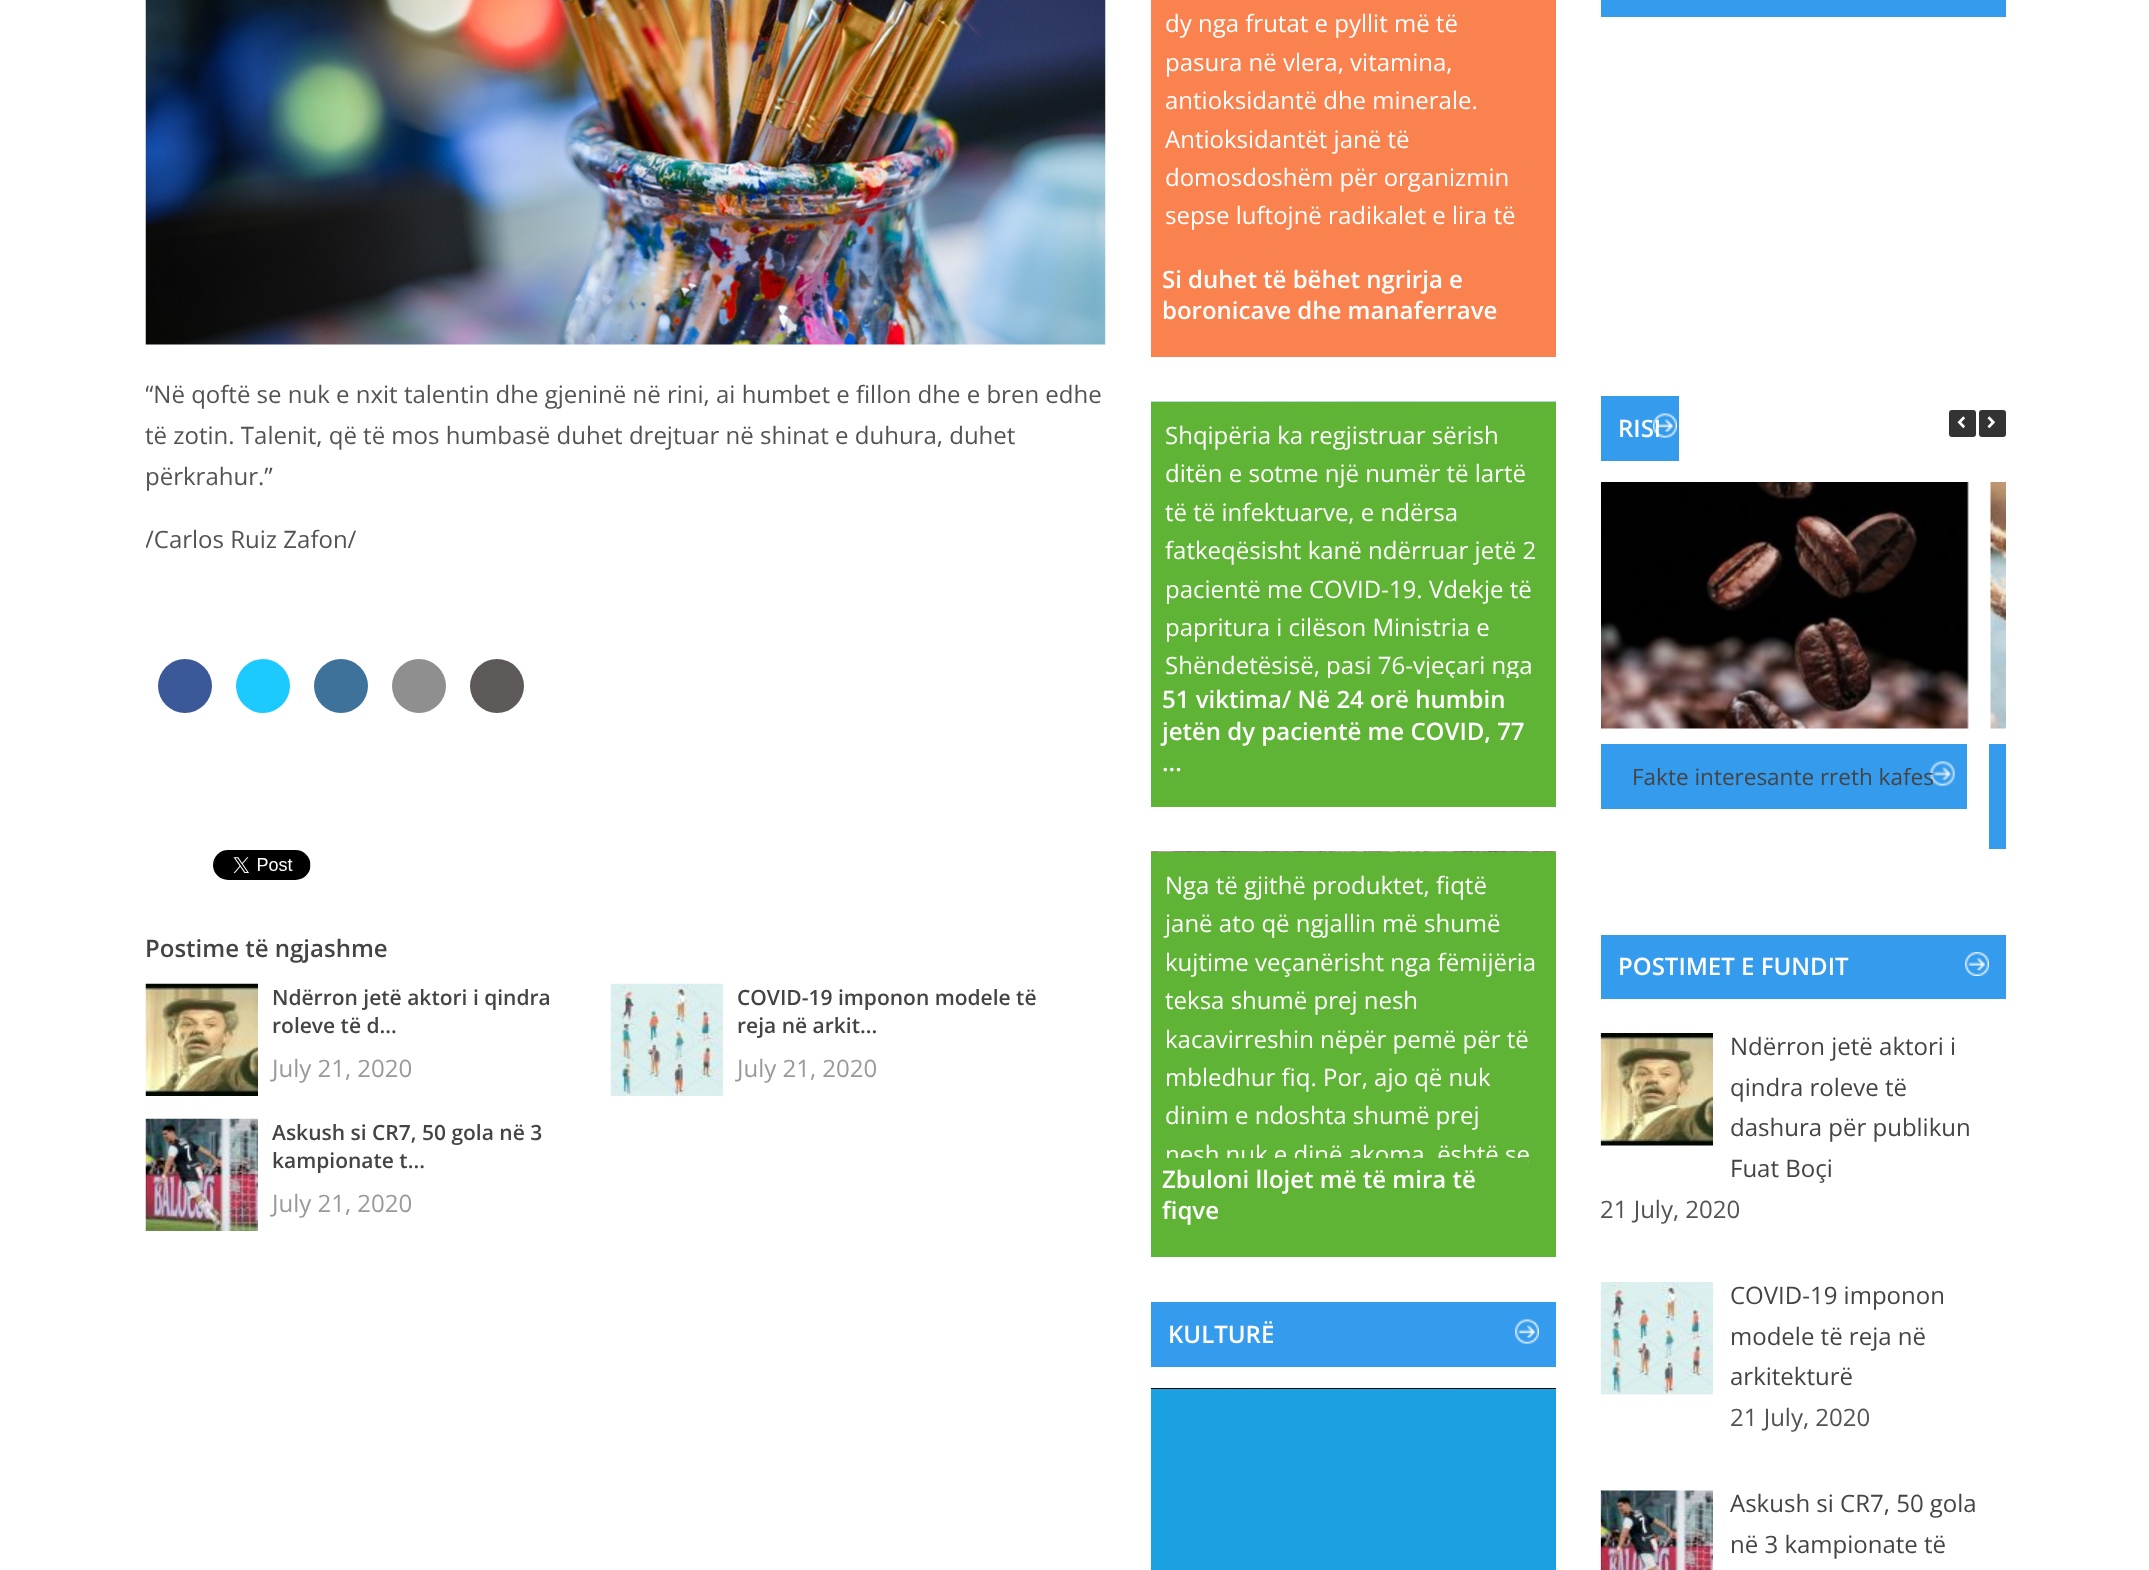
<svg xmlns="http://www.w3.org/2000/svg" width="2149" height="1570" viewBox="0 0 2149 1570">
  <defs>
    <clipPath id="clip1"><rect x="146" y="0" width="960" height="791"/></clipPath>
  </defs>
  <rect width="100%" height="100%" fill="#ffffff"/>
  <image x="145" y="0" width="961" height="345" href="img1.png"/>
  <g clip-path="url(#clip1)">
    <text x="145" y="403" font-family="Open Sans" font-size="24" fill="#535353">“Në qoftë se nuk e nxit talentin dhe gjeninë në rini, ai humbet e fillon dhe e bren edhe</text>
  </g>
  <text x="145" y="444" font-family="Open Sans" font-size="24" fill="#535353">të zotin. Talenit, që të mos humbasë duhet drejtuar në shinat e duhura, duhet</text>
  <text x="145" y="485" font-family="Open Sans" font-size="24" fill="#535353">përkrahur.”</text>
  <g clip-path="url(#clip1)">
    <text x="145" y="548" font-family="Open Sans" font-size="24" fill="#535353">/Carlos Ruiz Zafon/</text>
  </g>
  <circle cx="185" cy="686" r="27" fill="#3b5998"/>
  <circle cx="263" cy="686" r="27" fill="#1dcaff"/>
  <circle cx="341" cy="686" r="27" fill="#3f729b"/>
  <circle cx="419" cy="686" r="27" fill="#8f8f8f"/>
  <circle cx="497" cy="686" r="27" fill="#5e5959"/>
  <image x="213" y="850" width="98" height="30" href="img2.png"/>
  <text x="145" y="957" font-family="Open Sans" font-size="24" font-weight="600" fill="#444444">Postime të ngjashme</text>
  <image x="145" y="983" width="113" height="113" href="img3.png"/>
  <text x="272" y="1005" font-family="Open Sans" font-size="21" font-weight="600" fill="#444444">Ndërron jetë aktori i qindra</text>
  <text x="272" y="1033" font-family="Open Sans" font-size="21" font-weight="600" fill="#444444">roleve të d...</text>
  <text x="272" y="1077" font-family="Open Sans" font-size="24" fill="#999999">July 21, 2020</text>
  <image x="610" y="983" width="113" height="113" href="img4.png"/>
  <text x="737" y="1005" font-family="Open Sans" font-size="21" font-weight="600" fill="#444444">COVID-19 imponon modele të</text>
  <text x="737" y="1033" font-family="Open Sans" font-size="21" font-weight="600" fill="#444444">reja në arkit...</text>
  <text x="737" y="1077" font-family="Open Sans" font-size="24" fill="#999999">July 21, 2020</text>
  <image x="145" y="1118" width="113" height="113" href="img5.png"/>
  <text x="272" y="1140" font-family="Open Sans" font-size="21" font-weight="600" fill="#444444">Askush si CR7, 50 gola në 3</text>
  <text x="272" y="1168" font-family="Open Sans" font-size="21" font-weight="600" fill="#444444">kampionate t...</text>
  <text x="272" y="1212" font-family="Open Sans" font-size="24" fill="#999999">July 21, 2020</text>
  <rect x="1151" y="0" width="405" height="357" fill="#fa824f"/>
  <text x="1165" y="32" font-family="Open Sans" font-size="24" fill="#ffffff">dy nga frutat e pyllit më të</text>
  <text x="1165" y="71" font-family="Open Sans" font-size="24" fill="#ffffff">pasura në vlera, vitamina,</text>
  <text x="1165" y="109" font-family="Open Sans" font-size="24" fill="#ffffff">antioksidantë dhe minerale.</text>
  <text x="1165" y="148" font-family="Open Sans" font-size="24" fill="#ffffff">Antioksidantët janë të</text>
  <text x="1165" y="186" font-family="Open Sans" font-size="24" fill="#ffffff">domosdoshëm për organizmin</text>
  <text x="1165" y="224" font-family="Open Sans" font-size="24" fill="#ffffff">sepse luftojnë radikalet e lira të</text>
  <text x="1162" y="288" font-family="Open Sans" font-size="24" font-weight="600" fill="#ffffff">Si duhet të bëhet ngrirja e</text>
  <text x="1162" y="319" font-family="Open Sans" font-size="24" font-weight="600" fill="#ffffff">boronicave dhe manaferrave</text>
  <image x="1151" y="401" width="405" height="1" href="img6.png"/>
  <rect x="1151" y="402" width="405" height="405" fill="#5fb435"/>
  <text x="1165" y="444" font-family="Open Sans" font-size="24" fill="#ffffff">Shqipëria ka regjistruar sërish</text>
  <text x="1165" y="482" font-family="Open Sans" font-size="24" fill="#ffffff">ditën e sotme një numër të lartë</text>
  <text x="1165" y="521" font-family="Open Sans" font-size="24" fill="#ffffff">të të infektuarve, e ndërsa</text>
  <text x="1165" y="559" font-family="Open Sans" font-size="24" fill="#ffffff">fatkeqësisht kanë ndërruar jetë 2</text>
  <text x="1165" y="598" font-family="Open Sans" font-size="24" fill="#ffffff">pacientë me COVID-19. Vdekje të</text>
  <text x="1165" y="636" font-family="Open Sans" font-size="24" fill="#ffffff">papritura i cilëson Ministria e</text>
  <text x="1165" y="674" font-family="Open Sans" font-size="24" fill="#ffffff">Shëndetësisë, pasi 76-vjeçari nga</text>
  <rect x="1327" y="678" width="191" height="2" fill="#5fb435"/>
  <text x="1162" y="708" font-family="Open Sans" font-size="24" font-weight="600" fill="#ffffff">51 viktima/ Në 24 orë humbin</text>
  <text x="1162" y="740" font-family="Open Sans" font-size="24" font-weight="600" fill="#ffffff">jetën dy pacientë me COVID, 77</text>
  <text x="1162" y="771" font-family="Open Sans" font-size="24" font-weight="600" fill="#ffffff">...</text>
  <image x="1151" y="851" width="405" height="1" href="img7.png"/>
  <rect x="1151" y="852" width="405" height="405" fill="#5fb435"/>
  <text x="1165" y="894" font-family="Open Sans" font-size="24" fill="#ffffff">Nga të gjithë produktet, fiqtë</text>
  <text x="1165" y="932" font-family="Open Sans" font-size="24" fill="#ffffff">janë ato që ngjallin më shumë</text>
  <text x="1165" y="971" font-family="Open Sans" font-size="24" fill="#ffffff">kujtime veçanërisht nga fëmijëria</text>
  <text x="1165" y="1009" font-family="Open Sans" font-size="24" fill="#ffffff">teksa shumë prej nesh</text>
  <text x="1165" y="1048" font-family="Open Sans" font-size="24" fill="#ffffff">kacavirreshin nëpër pemë për të</text>
  <text x="1165" y="1086" font-family="Open Sans" font-size="24" fill="#ffffff">mbledhur fiq. Por, ajo që nuk</text>
  <text x="1165" y="1124" font-family="Open Sans" font-size="24" fill="#ffffff">dinim e ndoshta shumë prej</text>
  <text x="1165" y="1163" font-family="Open Sans" font-size="24" fill="#ffffff">nesh nuk e dinë akoma, është se</text>
  <rect x="1166" y="1158" width="362" height="9" fill="#5fb435"/>
  <text x="1162" y="1188" font-family="Open Sans" font-size="24" font-weight="600" fill="#ffffff">Zbuloni llojet më të mira të</text>
  <text x="1162" y="1219" font-family="Open Sans" font-size="24" font-weight="600" fill="#ffffff">fiqve</text>
  <rect x="1151" y="1302" width="405" height="65" fill="#359bed"/>
  <image x="1515" y="1319" width="24" height="25" href="img8.png"/>
  <text x="1168" y="1343" font-family="Open Sans" font-size="24" font-weight="600" fill="#ffffff">KULTURË</text>
  <image x="1151" y="1388" width="405" height="1" href="img9.png"/>
  <rect x="1151" y="1389" width="405" height="181" fill="#1ba1e2"/>
  <rect x="1601" y="0" width="405" height="17" fill="#359bed"/>
  <rect x="1601" y="396" width="78" height="65" fill="#359bed"/>
  <image x="1653" y="413" width="24" height="25" href="img10.png"/>
  <text x="1618" y="437" font-family="Open Sans" font-size="24" font-weight="600" fill="#ffffff">RISI</text>
  <rect x="1949" y="410" width="27" height="27" rx="3" fill="#333333"/>
  <image x="1957" y="416" width="8" height="13" href="img11.png"/>
  <rect x="1979" y="410" width="27" height="27" rx="3" fill="#333333"/>
  <image x="1987" y="416" width="8" height="13" href="img12.png"/>
  <image x="1601" y="482" width="368" height="247" href="img13.png"/>
  <rect x="1601" y="744" width="366" height="65" fill="#359bed"/>
  <image x="1930" y="761" width="25" height="25" href="img14.png"/>
  <text x="1632" y="785" font-family="Open Sans" font-size="22.5" fill="#444444">Fakte interesante rreth kafes</text>
  <image x="1990" y="482" width="16" height="247" href="img15.png"/>
  <rect x="1989" y="744" width="17" height="105" fill="#359bed"/>
  <rect x="1601" y="935" width="405" height="64" fill="#359bed"/>
  <image x="1965" y="952" width="24" height="24" href="img16.png"/>
  <text x="1618" y="975" font-family="Open Sans" font-size="24" font-weight="600" fill="#ffffff">POSTIMET E FUNDIT</text>
  <image x="1600" y="1033" width="113" height="113" href="img17.png"/>
  <text x="1730" y="1055" font-family="Open Sans" font-size="24" fill="#444444">Ndërron jetë aktori i</text>
  <text x="1730" y="1096" font-family="Open Sans" font-size="24" fill="#444444">qindra roleve të</text>
  <text x="1730" y="1136" font-family="Open Sans" font-size="24" fill="#444444">dashura për publikun</text>
  <text x="1730" y="1177" font-family="Open Sans" font-size="24" fill="#444444">Fuat Boçi</text>
  <text x="1600" y="1218" font-family="Open Sans" font-size="24" fill="#535353">21 July, 2020</text>
  <image x="1600" y="1282" width="113" height="113" href="img18.png"/>
  <text x="1730" y="1304" font-family="Open Sans" font-size="24" fill="#444444">COVID-19 imponon</text>
  <text x="1730" y="1345" font-family="Open Sans" font-size="24" fill="#444444">modele të reja në</text>
  <text x="1730" y="1385" font-family="Open Sans" font-size="24" fill="#444444">arkitekturë</text>
  <text x="1730" y="1426" font-family="Open Sans" font-size="24" fill="#535353">21 July, 2020</text>
  <image x="1600" y="1490" width="113" height="80" href="img19.png"/>
  <text x="1730" y="1512" font-family="Open Sans" font-size="24" fill="#444444">Askush si CR7, 50 gola</text>
  <text x="1730" y="1553" font-family="Open Sans" font-size="24" fill="#444444">në 3 kampionate të</text>
</svg>
